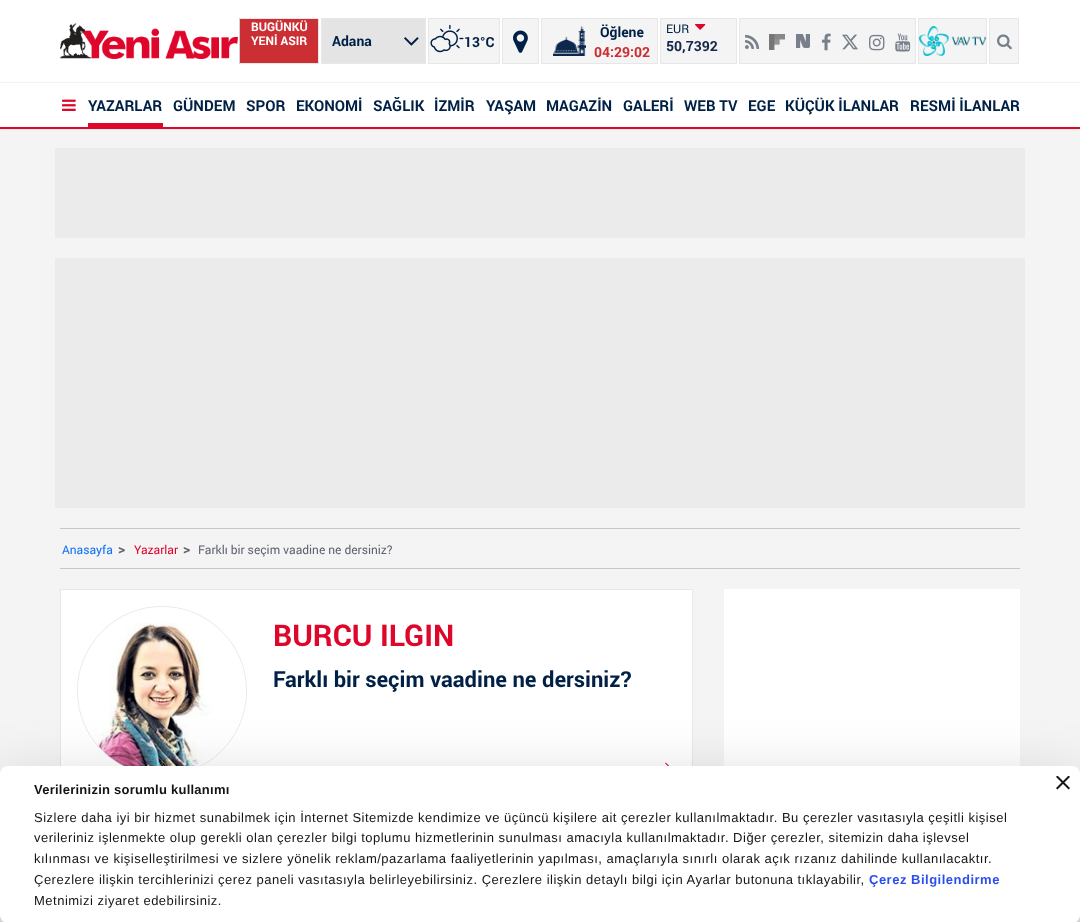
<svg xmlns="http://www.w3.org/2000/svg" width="1080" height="922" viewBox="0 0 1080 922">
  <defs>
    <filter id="blur1" x="-50%" y="-200%" width="200%" height="500%"><feGaussianBlur stdDeviation="1.5"/></filter>
    <filter id="blur2" x="-50%" y="-200%" width="200%" height="500%"><feGaussianBlur stdDeviation="35"/></filter>
  </defs>
  <rect width="100%" height="100%" fill="#f4f4f4"/>
  <rect x="0" y="0" width="1080" height="128" fill="#5d5d5d" fill-opacity="0.49" filter="url(#blur1)"/>
  <rect x="0" y="0" width="1080" height="127" fill="#ffffff"/>
  <image x="60" y="23" width="178" height="36" href="img1.png"/>
  <rect x="240" y="19" width="78" height="44" fill="#cb2f34"/>
  <rect x="239" y="18" width="80" height="1" fill="#e7e7e7"/>
  <rect x="318" y="18" width="1" height="46" fill="#e7e7e7"/>
  <rect x="239" y="63" width="80" height="1" fill="#e7e7e7"/>
  <rect x="239" y="18" width="1" height="46" fill="#cdd0d5"/>
  <text x="251" y="31" font-family="Roboto" font-size="12" font-weight="bold" fill="#ffffff">BUGÜNKÜ</text>
  <text x="251" y="45" font-family="Roboto" font-size="12" font-weight="bold" fill="#ffffff">YENİ ASIR</text>
  <rect x="321.5" y="18.5" width="104" height="45" fill="#e4e4e4" stroke="#e7e7e7"/>
  <text x="332" y="46" font-family="Roboto" font-size="14" font-weight="bold" fill="#002045">Adana</text>
  <image x="404" y="37" width="15" height="9" href="img2.png"/>
  <rect x="428.5" y="18.5" width="71" height="45" fill="#f4f4f4" stroke="#e7e7e7"/>
  <image x="430" y="24" width="34" height="29" href="img3.png"/>
  <text x="464" y="47" font-family="Roboto" font-size="14" font-weight="bold" fill="#002045">13°C</text>
  <rect x="502.5" y="18.5" width="36" height="45" fill="#f4f4f4" stroke="#e7e7e7"/>
  <image x="513" y="30" width="15" height="23" href="img4.png"/>
  <rect x="541.5" y="18.5" width="116" height="45" fill="#f4f4f4" stroke="#e7e7e7"/>
  <image x="553" y="26" width="33" height="30" href="img5.png"/>
  <text x="600" y="37" font-family="Roboto" font-size="14" font-weight="bold" fill="#002045">Öğlene</text>
  <text x="594" y="57" font-family="Roboto" font-size="14" font-weight="bold" fill="#cb2f34">04:29:02</text>
  <rect x="660.5" y="18.5" width="76" height="45" fill="#f4f4f4" stroke="#e7e7e7"/>
  <text x="666" y="33" font-family="Roboto" font-size="12" fill="#002045">EUR</text>
  <image x="695" y="24" width="11" height="6" href="img6.png"/>
  <text x="666" y="51" font-family="Roboto" font-size="14" font-weight="bold" fill="#14284b">50,7392</text>
  <rect x="739.5" y="18.5" width="176" height="45" fill="#f4f4f4" stroke="#e7e7e7"/>
  <image x="745" y="34" width="15" height="15" href="img7.png"/>
  <image x="769" y="34" width="16" height="16" href="img8.png"/>
  <image x="796" y="34" width="14" height="14" href="img9.png"/>
  <image x="821" y="33" width="10" height="18" href="img10.png"/>
  <image x="842" y="34" width="16" height="16" href="img11.png"/>
  <image x="869" y="34" width="16" height="17" href="img12.png"/>
  <image x="895" y="33" width="16" height="19" href="img13.png"/>
  <rect x="918.5" y="18.5" width="68" height="45" fill="#f4f4f4" stroke="#e7e7e7"/>
  <image x="919" y="26" width="67" height="30" href="img14.png"/>
  <rect x="989.5" y="18.5" width="29" height="45" fill="#f4f4f4" stroke="#e7e7e7"/>
  <image x="997" y="34" width="15" height="16" href="img15.png"/>
  <rect x="0" y="82" width="1080" height="1" fill="#f2f2f2"/>
  <image x="62" y="99" width="14" height="12" href="img16.png"/>
  <rect x="88" y="123" width="75" height="4" fill="#df062c"/>
  <text x="88" y="111" font-family="Roboto" font-size="15" font-weight="bold" fill="#002045">YAZARLAR</text>
  <text x="173" y="111" font-family="Roboto" font-size="15" font-weight="bold" fill="#002045">GÜNDEM</text>
  <text x="246" y="111" font-family="Roboto" font-size="15" font-weight="bold" fill="#002045">SPOR</text>
  <text x="296" y="111" font-family="Roboto" font-size="15" font-weight="bold" fill="#002045">EKONOMİ</text>
  <text x="373" y="111" font-family="Roboto" font-size="15" font-weight="bold" fill="#002045">SAĞLIK</text>
  <text x="434" y="111" font-family="Roboto" font-size="15" font-weight="bold" fill="#002045">İZMİR</text>
  <text x="486" y="111" font-family="Roboto" font-size="15" font-weight="bold" fill="#002045">YAŞAM</text>
  <text x="546" y="111" font-family="Roboto" font-size="15" font-weight="bold" fill="#002045">MAGAZİN</text>
  <text x="623" y="111" font-family="Roboto" font-size="15" font-weight="bold" fill="#002045">GALERİ</text>
  <text x="684" y="111" font-family="Roboto" font-size="15" font-weight="bold" fill="#002045">WEB TV</text>
  <text x="748" y="111" font-family="Roboto" font-size="15" font-weight="bold" fill="#002045">EGE</text>
  <text x="785" y="111" font-family="Roboto" font-size="15" font-weight="bold" fill="#002045">KÜÇÜK İLANLAR</text>
  <text x="910" y="111" font-family="Roboto" font-size="15" font-weight="bold" fill="#002045">RESMİ İLANLAR</text>
  <rect x="0" y="127" width="1080" height="2" fill="#df062c"/>
  <rect x="55" y="148" width="970" height="90" fill="#ebebec"/>
  <rect x="55" y="258" width="970" height="250" fill="#ebebec"/>
  <rect x="60" y="528" width="960" height="1" fill="#c8c8c8"/>
  <rect x="60" y="568" width="960" height="1" fill="#c8c8c8"/>
  <text x="62" y="554" font-family="Roboto" font-size="12" fill="#0f71f6">Anasayfa</text>
  <text x="118" y="554" font-family="Roboto" font-size="14" font-weight="bold" fill="#5e6470">&gt;</text>
  <text x="134" y="554" font-family="Roboto" font-size="12" fill="#df062c">Yazarlar</text>
  <text x="183" y="554" font-family="Roboto" font-size="14" font-weight="bold" fill="#5e6470">&gt;</text>
  <text x="198" y="554" font-family="Roboto" font-size="12" fill="#5e6470">Farklı bir seçim vaadine ne dersiniz?</text>
  <rect x="61" y="590" width="631" height="176" fill="#ffffff"/>
  <rect x="60.5" y="589.5" width="632" height="282" fill="none" stroke="#e7e7e7"/>
  <circle cx="162" cy="691" r="84.5" fill="#f3f7fd" stroke="#e9e9e9"/>
  <image x="78" y="607" width="168" height="159" href="img17.png"/>
  <text x="273" y="646" font-family="Roboto" font-size="30" font-weight="bold" fill="#df062c">BURCU ILGIN</text>
  <text x="273" y="687" font-family="Roboto" font-size="22" font-weight="bold" fill="#002045">Farklı bir seçim vaadine ne dersiniz?</text>
  <image x="665" y="762" width="5" height="4" href="img18.png"/>
  <rect x="724" y="589" width="296" height="177" fill="#ffffff"/>
  <rect x="0" y="796" width="1080" height="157" rx="8" fill="#000000" fill-opacity="0.3" filter="url(#blur2)"/>
  <rect x="0" y="766" width="1080" height="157" rx="8" fill="#ffffff"/>
  <text x="34" y="794" font-family="Liberation Sans" font-size="13" font-weight="bold" letter-spacing="0.25" fill="#141414">Verilerinizin sorumlu kullanımı</text>
  <text x="34" y="822" font-family="Liberation Sans" font-size="13" letter-spacing="0.5" fill="#141414">Sizlere daha iyi bir hizmet sunabilmek için İnternet Sitemizde kendimize ve üçüncü kişilere ait çerezler kullanılmaktadır. Bu çerezler vasıtasıyla çeşitli kişisel</text>
  <text x="34" y="842" font-family="Liberation Sans" font-size="13" letter-spacing="0.5" fill="#141414">verileriniz işlenmekte olup gerekli olan çerezler bilgi toplumu hizmetlerinin sunulması amacıyla kullanılmaktadır. Diğer çerezler, sitemizin daha işlevsel</text>
  <text x="34" y="863" font-family="Liberation Sans" font-size="13" letter-spacing="0.5" fill="#141414">kılınması ve kişiselleştirilmesi ve sizlere yönelik reklam/pazarlama faaliyetlerinin yapılması, amaçlarıyla sınırlı olarak açık rızanız dahilinde kullanılacaktır.</text>
  <text x="34" y="884" font-family="Liberation Sans" font-size="13" letter-spacing="0.5" fill="#141414">Çerezlere ilişkin tercihlerinizi çerez paneli vasıtasıyla belirleyebilirsiniz. Çerezlere ilişkin detaylı bilgi için Ayarlar butonuna tıklayabilir,</text>
  <text x="869" y="884" font-family="Liberation Sans" font-size="13" font-weight="bold" letter-spacing="0.5" fill="#2a4eef">Çerez Bilgilendirme</text>
  <text x="34" y="905" font-family="Liberation Sans" font-size="13" letter-spacing="0.5" fill="#141414">Metnimizi ziyaret edebilirsiniz.</text>
  <image x="1056" y="776" width="14" height="14" href="img19.png"/>
</svg>
